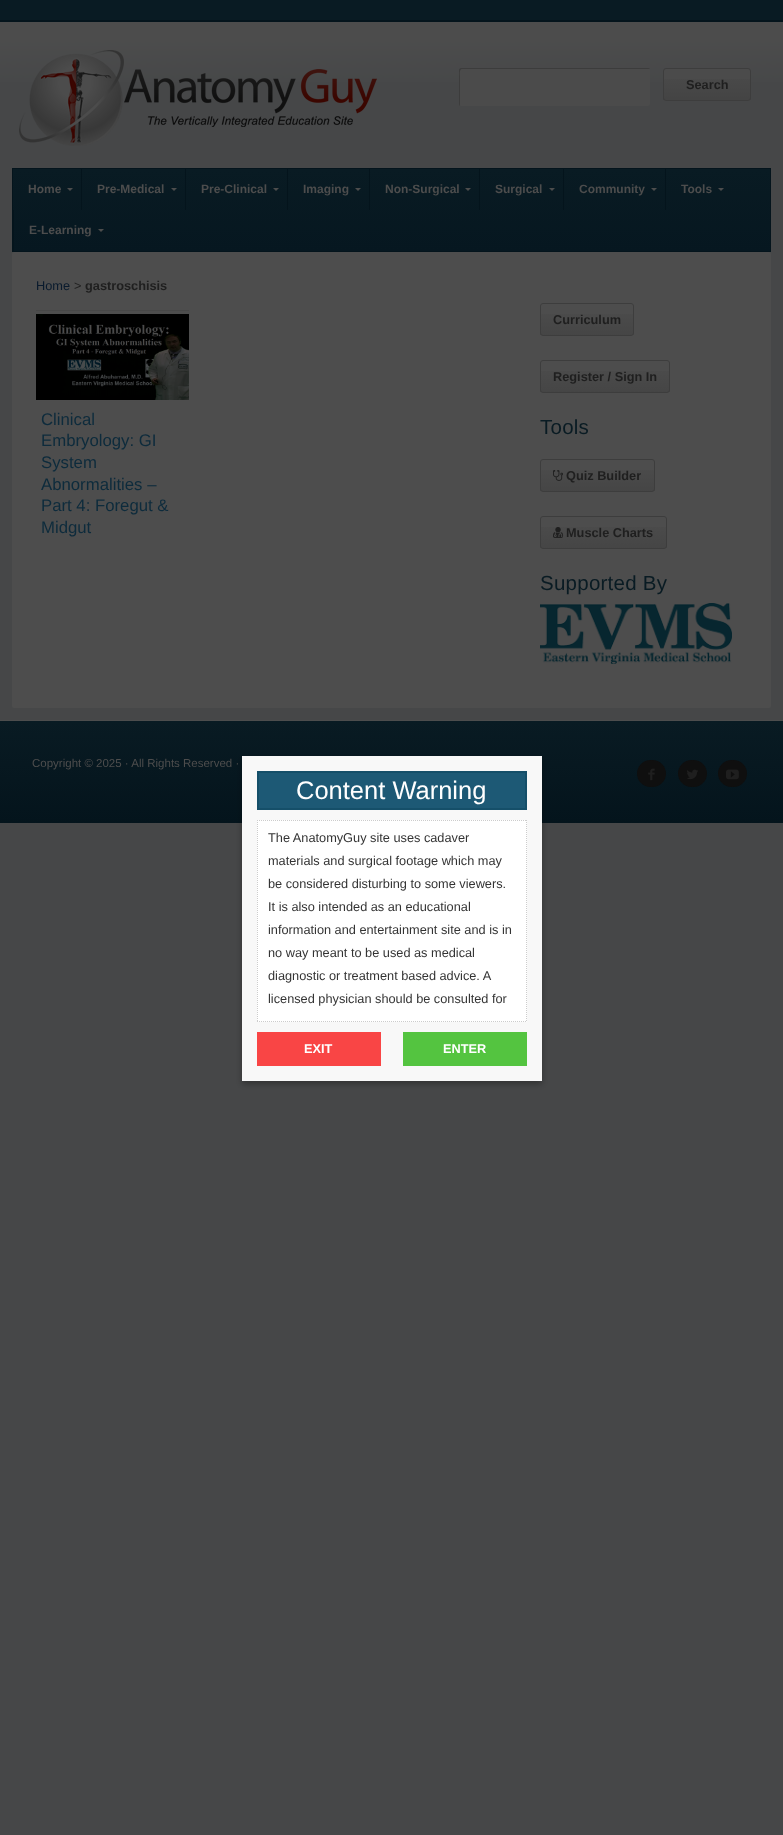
<svg xmlns="http://www.w3.org/2000/svg" width="783" height="1835" viewBox="0 0 783 1835">
  <defs>
    <linearGradient id="g1" gradientUnits="userSpaceOnUse" x1="707" y1="69" x2="707" y2="100"><stop offset="0" stop-color="#000000" stop-opacity="0"/><stop offset="1" stop-color="#000000" stop-opacity="0.1"/></linearGradient>
    <linearGradient id="g2" gradientUnits="userSpaceOnUse" x1="392" y1="169" x2="392" y2="251"><stop offset="0" stop-color="#091b23"/><stop offset="1" stop-color="#061720"/></linearGradient>
    <linearGradient id="g3" gradientUnits="userSpaceOnUse" x1="587" y1="304" x2="587" y2="335"><stop offset="0" stop-color="#000000" stop-opacity="0"/><stop offset="1" stop-color="#000000" stop-opacity="0.1"/></linearGradient>
    <linearGradient id="g4" gradientUnits="userSpaceOnUse" x1="605" y1="361" x2="605" y2="392"><stop offset="0" stop-color="#000000" stop-opacity="0"/><stop offset="1" stop-color="#000000" stop-opacity="0.1"/></linearGradient>
    <linearGradient id="g5" gradientUnits="userSpaceOnUse" x1="598" y1="460" x2="598" y2="491"><stop offset="0" stop-color="#000000" stop-opacity="0"/><stop offset="1" stop-color="#000000" stop-opacity="0.1"/></linearGradient>
    <linearGradient id="g6" gradientUnits="userSpaceOnUse" x1="604" y1="517" x2="604" y2="548"><stop offset="0" stop-color="#000000" stop-opacity="0"/><stop offset="1" stop-color="#000000" stop-opacity="0.1"/></linearGradient>
    <linearGradient id="g7" gradientUnits="userSpaceOnUse" x1="392" y1="721" x2="392" y2="823"><stop offset="0" stop-color="#091b23"/><stop offset="1" stop-color="#04141c"/></linearGradient>
    <filter id="blur1" x="-50%" y="-200%" width="200%" height="500%"><feGaussianBlur stdDeviation="3"/></filter>
  </defs>
  <rect width="100%" height="100%" fill="#464748"/>
  <image x="0" y="0" width="783" height="82" href="img1.png"/>
  <image x="19" y="50" width="358" height="96" href="img2.png"/>
  <rect x="459" y="68" width="191" height="38" rx="2" fill="#4b4b4b"/>
  <path d="M462 69H650C650 69 649 68 648 68H461C460 68 459 69 459 70V104C459 105 460 106 460 106V77C460 76 459 69 462 69Z" fill="#3c3c3c"/>
  <rect x="663" y="68" width="88" height="33" rx="3" fill="#4b4b4b"/>
  <rect x="663" y="79" width="88" height="21" fill="url(#g1)"/>
  <rect x="663.5" y="68.5" width="87" height="32" rx="2.5" fill="none" stroke="#3d3d3d"/>
  <text x="686" y="89" font-family="Liberation Sans" font-size="12.75" font-weight="bold" fill="#1f1f1f">Search</text>
  <rect x="13" y="169" width="757" height="82" fill="url(#g2)"/>
  <rect x="12.5" y="168.5" width="758" height="83" fill="none" stroke="#04141c"/>
  <text x="28" y="193" font-family="Liberation Sans" font-size="12" font-weight="bold" fill="#4d4d4d">Home</text>
  <path d="M67 188H73L70 191Z" fill="#4d4d4d"/>
  <rect x="81" y="169" width="1" height="41" fill="#04141c"/>
  <text x="97" y="193" font-family="Liberation Sans" font-size="12" font-weight="bold" fill="#4d4d4d">Pre-Medical</text>
  <path d="M171 188H177L174 191Z" fill="#4d4d4d"/>
  <rect x="185" y="169" width="1" height="41" fill="#04141c"/>
  <text x="201" y="193" font-family="Liberation Sans" font-size="12" font-weight="bold" fill="#4d4d4d">Pre-Clinical</text>
  <path d="M273 188H279L276 191Z" fill="#4d4d4d"/>
  <rect x="287" y="169" width="1" height="41" fill="#04141c"/>
  <text x="303" y="193" font-family="Liberation Sans" font-size="12" font-weight="bold" fill="#4d4d4d">Imaging</text>
  <path d="M355 188H361L358 191Z" fill="#4d4d4d"/>
  <rect x="369" y="169" width="1" height="41" fill="#04141c"/>
  <text x="385" y="193" font-family="Liberation Sans" font-size="12" font-weight="bold" fill="#4d4d4d">Non-Surgical</text>
  <path d="M465 188H471L468 191Z" fill="#4d4d4d"/>
  <rect x="479" y="169" width="1" height="41" fill="#04141c"/>
  <text x="495" y="193" font-family="Liberation Sans" font-size="12" font-weight="bold" fill="#4d4d4d">Surgical</text>
  <path d="M549 188H555L552 191Z" fill="#4d4d4d"/>
  <rect x="563" y="169" width="1" height="41" fill="#04141c"/>
  <text x="579" y="193" font-family="Liberation Sans" font-size="12" font-weight="bold" fill="#4d4d4d">Community</text>
  <path d="M651 188H657L654 191Z" fill="#4d4d4d"/>
  <rect x="665" y="169" width="1" height="41" fill="#04141c"/>
  <text x="681" y="193" font-family="Liberation Sans" font-size="12" font-weight="bold" fill="#4d4d4d">Tools</text>
  <path d="M718 188H724L721 191Z" fill="#4d4d4d"/>
  <rect x="13" y="210" width="1" height="41" fill="#04141c"/>
  <text x="29" y="234" font-family="Liberation Sans" font-size="12" font-weight="bold" fill="#4d4d4d">E-Learning</text>
  <path d="M98 229H104L101 232Z" fill="#4d4d4d"/>
  <rect x="12" y="252" width="759" height="456" rx="2" fill="#4d4d4d"/>
  <text x="36" y="290" font-family="Liberation Sans" font-size="12.75" fill="#091a2d">Home</text>
  <text x="74" y="290" font-family="Liberation Sans" font-size="12.75" fill="#1f1f1f">&gt;</text>
  <text x="85" y="290" font-family="Liberation Sans" font-size="12.75" font-weight="bold" fill="#1f1f1f">gastroschisis</text>
  <rect x="36" y="310" width="153" height="1" fill="#474747"/>
  <image x="36" y="314" width="153" height="86" href="img3.png"/>
  <text x="41" y="425" font-family="Liberation Sans" font-size="16.75" fill="#0d2b3c">Clinical</text>
  <text x="41" y="446" font-family="Liberation Sans" font-size="16.75" fill="#0d2b3c">Embryology: GI</text>
  <text x="41" y="468" font-family="Liberation Sans" font-size="16.75" fill="#0d2b3c">System</text>
  <text x="41" y="490" font-family="Liberation Sans" font-size="16.75" fill="#0d2b3c">Abnormalities –</text>
  <text x="41" y="511" font-family="Liberation Sans" font-size="16.75" fill="#0d2b3c">Part 4: Foregut &amp;</text>
  <text x="41" y="533" font-family="Liberation Sans" font-size="16.75" fill="#0d2b3c">Midgut</text>
  <rect x="540" y="314" width="94" height="21" fill="url(#g3)"/>
  <rect x="540.5" y="303.5" width="93" height="32" rx="2.5" fill="none" stroke="#3d3d3d"/>
  <text x="553" y="324" font-family="Liberation Sans" font-size="12.75" font-weight="bold" fill="#1f1f1f">Curriculum</text>
  <rect x="540" y="371" width="130" height="21" fill="url(#g4)"/>
  <rect x="540.5" y="360.5" width="129" height="32" rx="2.5" fill="none" stroke="#3d3d3d"/>
  <text x="553" y="381" font-family="Liberation Sans" font-size="12.75" font-weight="bold" fill="#1f1f1f">Register / Sign In</text>
  <text x="540" y="434" font-family="Liberation Sans" font-size="20.5" letter-spacing="0.25" fill="#091b23">Tools</text>
  <rect x="540" y="470" width="115" height="21" fill="url(#g5)"/>
  <rect x="540.5" y="459.5" width="114" height="32" rx="2.5" fill="none" stroke="#3d3d3d"/>
  <image x="553" y="470" width="10" height="11" href="img4.png"/>
  <text x="566" y="480" font-family="Liberation Sans" font-size="12.75" font-weight="bold" fill="#1f1f1f">Quiz Builder</text>
  <rect x="540" y="527" width="127" height="21" fill="url(#g6)"/>
  <rect x="540.5" y="516.5" width="126" height="32" rx="2.5" fill="none" stroke="#3d3d3d"/>
  <image x="553" y="527" width="11" height="11" href="img5.png"/>
  <text x="566" y="537" font-family="Liberation Sans" font-size="12.75" font-weight="bold" fill="#1f1f1f">Muscle Charts</text>
  <text x="540" y="590" font-family="Liberation Sans" font-size="20.5" letter-spacing="0.25" fill="#091b23">Supported By</text>
  <image x="540" y="603" width="192" height="61" href="img6.png"/>
  <rect x="0" y="720" width="783" height="1" fill="#4d4d4d"/>
  <rect x="0" y="721" width="783" height="102" fill="url(#g7)"/>
  <text x="32" y="767" font-family="Liberation Sans" font-size="11.5" fill="#4d4d4d">Copyright © 2025 · All Rights Reserved ·</text>
  <rect x="637" y="760" width="29" height="27" rx="13.5" fill="#0f0f0f"/>
  <image x="648" y="768" width="7" height="13" href="img7.png"/>
  <rect x="678" y="760" width="29" height="27" rx="13.5" fill="#0f0f0f"/>
  <image x="687" y="769" width="11" height="11" href="img8.png"/>
  <rect x="718" y="760" width="29" height="27" rx="13.5" fill="#0f0f0f"/>
  <image x="726" y="769" width="13" height="11" href="img9.png"/>
  <rect x="242" y="759" width="300" height="325" fill="#000000" fill-opacity="0.3" filter="url(#blur1)"/>
  <rect x="242" y="756" width="300" height="325" fill="#f8f8f8"/>
  <rect x="258" y="772" width="268" height="37" fill="#1d5975" stroke="#154f69" stroke-width="2"/>
  <text x="296" y="799" font-family="Liberation Sans" font-size="25.5" fill="#ffffff">Content Warning</text>
  <rect x="257" y="820" width="270" height="202" fill="#ffffff"/>
  <path d="M257 820.5H527" fill="none" stroke="#cccccc" stroke-dasharray="1 1"/>
  <path d="M526.5 820V1022" fill="none" stroke="#cccccc" stroke-dasharray="1 1"/>
  <path d="M257 1021.5H527" fill="none" stroke="#cccccc" stroke-dasharray="1 1"/>
  <path d="M257.5 820V1022" fill="none" stroke="#cccccc" stroke-dasharray="1 1"/>
  <text x="268" y="842" font-family="Liberation Sans" font-size="12.75" fill="#333333">The AnatomyGuy site uses cadaver</text>
  <text x="268" y="865" font-family="Liberation Sans" font-size="12.75" fill="#333333">materials and surgical footage which may</text>
  <text x="268" y="888" font-family="Liberation Sans" font-size="12.75" fill="#333333">be considered disturbing to some viewers.</text>
  <text x="268" y="911" font-family="Liberation Sans" font-size="12.75" fill="#333333">It is also intended as an educational</text>
  <text x="268" y="934" font-family="Liberation Sans" font-size="12.75" fill="#333333">information and entertainment site and is in</text>
  <text x="268" y="957" font-family="Liberation Sans" font-size="12.75" fill="#333333">no way meant to be used as medical</text>
  <text x="268" y="980" font-family="Liberation Sans" font-size="12.75" fill="#333333">diagnostic or treatment based advice. A</text>
  <text x="268" y="1003" font-family="Liberation Sans" font-size="12.75" fill="#333333">licensed physician should be consulted for</text>
  <rect x="257" y="1032" width="124" height="34" fill="#f94545"/>
  <text x="304" y="1053" font-family="Liberation Sans" font-size="12.75" font-weight="bold" fill="#ffffff">EXIT</text>
  <rect x="403" y="1032" width="124" height="34" fill="#54c440"/>
  <text x="443" y="1053" font-family="Liberation Sans" font-size="12.75" font-weight="bold" fill="#ffffff">ENTER</text>
</svg>
